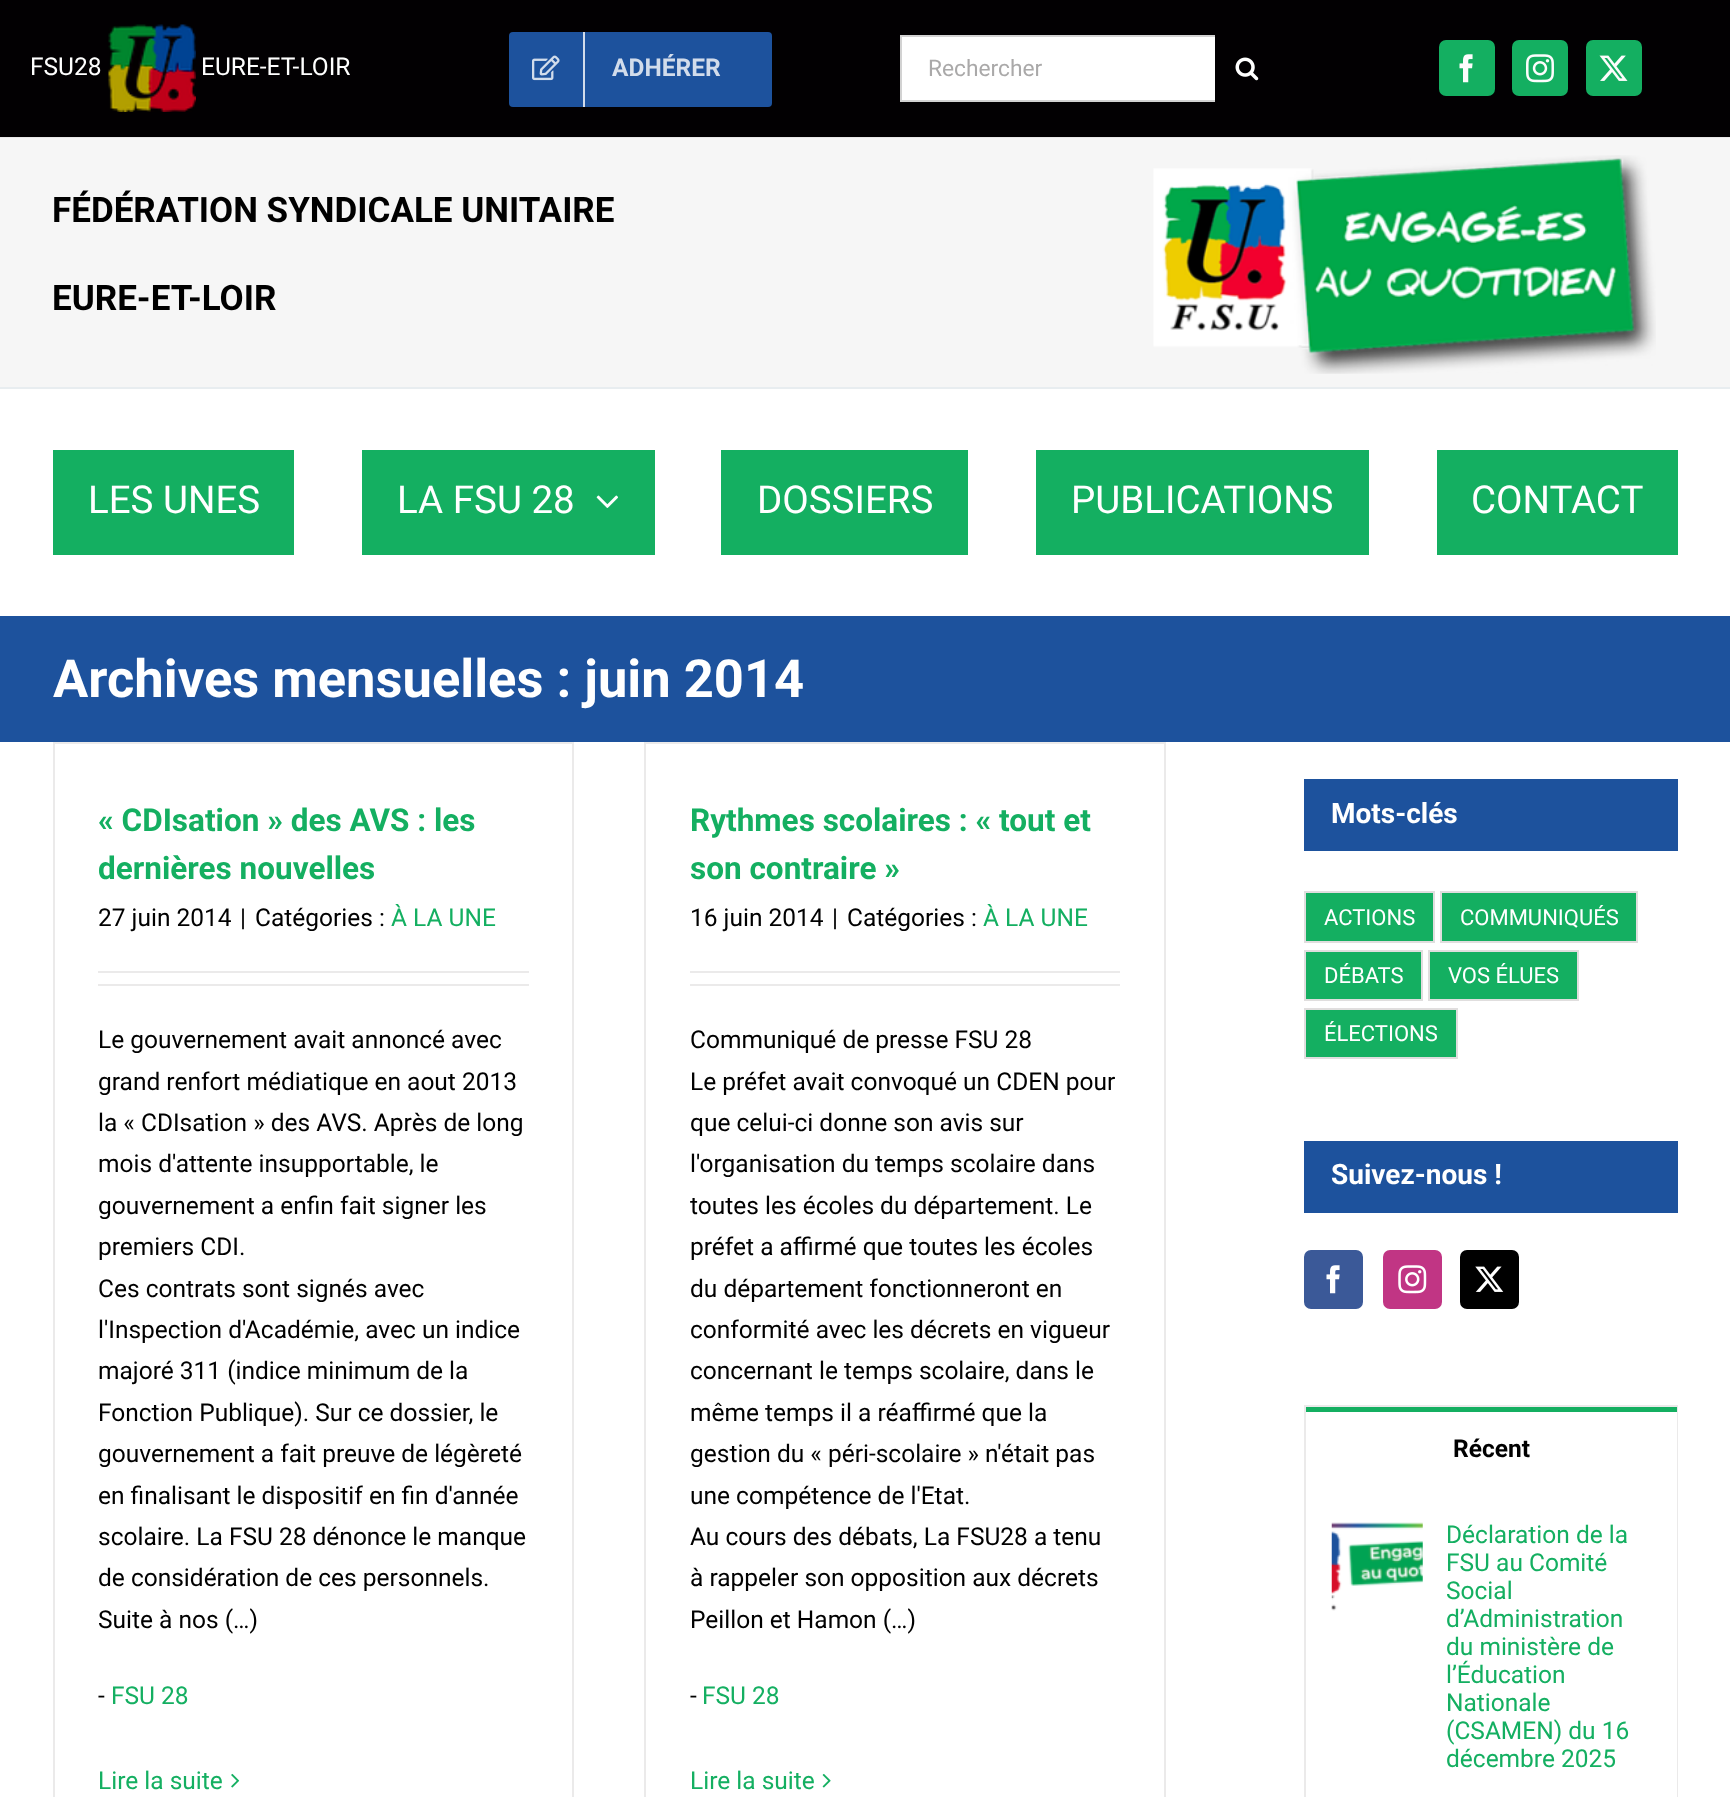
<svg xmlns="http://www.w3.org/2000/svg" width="1730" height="1797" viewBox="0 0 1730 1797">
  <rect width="100%" height="100%" fill="#ffffff"/>
  <rect x="0" y="0" width="1730" height="137" fill="#020002"/>
  <rect x="0" y="137" width="1730" height="1" fill="#eae9e9"/>
  <text x="30" y="75" font-family="Roboto" font-size="24.5" fill="#ffffff">FSU28</text>
  <image x="108" y="24" width="88" height="88" href="img1.png"/>
  <text x="201" y="75" font-family="Roboto" font-size="24.5" fill="#ffffff">EURE-ET-LOIR</text>
  <rect x="509" y="32" width="263" height="75" rx="4" fill="#1d529d"/>
  <rect x="583" y="32" width="2" height="75" fill="#d2dceb"/>
  <image x="532" y="55" width="28" height="26" href="img2.png"/>
  <text x="612" y="76" font-family="Roboto" font-size="24.5" font-weight="bold" fill="#d2dceb">ADHÉRER</text>
  <rect x="902" y="37" width="313" height="63" fill="#ffffff"/>
  <rect x="900" y="35" width="315" height="2" fill="#d2d2d2"/>
  <rect x="900" y="100" width="315" height="2" fill="#d2d2d2"/>
  <rect x="900" y="35" width="2" height="67" fill="#d2d2d2"/>
  <text x="928" y="76" font-family="Roboto" font-size="22.75" fill="#aaa9a9">Rechercher</text>
  <image x="1235" y="57" width="24" height="24" href="img3.png"/>
  <rect x="1439" y="40" width="56" height="56" rx="7" fill="#14af61"/>
  <image x="1459" y="54" width="14" height="29" href="img4.png"/>
  <rect x="1512" y="40" width="56" height="56" rx="7" fill="#14af61"/>
  <image x="1526" y="54" width="28" height="29" href="img5.png"/>
  <rect x="1586" y="40" width="56" height="56" rx="7" fill="#14af61"/>
  <image x="1599" y="55" width="29" height="26" href="img6.png"/>
  <rect x="0" y="138" width="1730" height="249" fill="#f6f6f6"/>
  <rect x="0" y="387" width="1730" height="2" fill="#e8edf0"/>
  <text x="52" y="222" font-family="Roboto" font-size="35" font-weight="bold" fill="#000000">FÉDÉRATION SYNDICALE UNITAIRE</text>
  <text x="52" y="310" font-family="Roboto" font-size="35" font-weight="bold" fill="#000000">EURE-ET-LOIR</text>
  <image x="1153" y="155" width="503" height="219" href="img7.png"/>
  <rect x="53" y="450" width="241" height="105" fill="#14af61"/>
  <text x="88" y="513" font-family="Roboto" font-size="38.5" fill="#ffffff">LES UNES</text>
  <rect x="362" y="450" width="293" height="105" fill="#14af61"/>
  <text x="397" y="513" font-family="Roboto" font-size="38.5" fill="#ffffff">LA FSU 28</text>
  <image x="596" y="495" width="22" height="13" href="img8.png"/>
  <rect x="721" y="450" width="247" height="105" fill="#14af61"/>
  <text x="757" y="513" font-family="Roboto" font-size="38.5" fill="#ffffff">DOSSIERS</text>
  <rect x="1036" y="450" width="333" height="105" fill="#14af61"/>
  <text x="1071" y="513" font-family="Roboto" font-size="38.5" fill="#ffffff">PUBLICATIONS</text>
  <rect x="1437" y="450" width="241" height="105" fill="#14af61"/>
  <text x="1471" y="513" font-family="Roboto" font-size="38.5" fill="#ffffff">CONTACT</text>
  <rect x="0" y="616" width="1730" height="126" fill="#1d529d"/>
  <text x="53" y="697" font-family="Roboto" font-size="52.5" font-weight="bold" fill="#ffffff">Archives mensuelles : juin 2014</text>
  <rect x="53" y="742" width="521" height="2" fill="#ebeaea"/>
  <rect x="572" y="742" width="2" height="1055" fill="#ebeaea"/>
  <rect x="53" y="742" width="2" height="1055" fill="#ebeaea"/>
  <text x="98" y="831" font-family="Roboto" font-size="31.5" font-weight="bold" fill="#14af61">« CDIsation » des AVS : les</text>
  <text x="98" y="879" font-family="Roboto" font-size="31.5" font-weight="bold" fill="#14af61">dernières nouvelles</text>
  <text x="98" y="926" font-family="Roboto" font-size="24.5" fill="#000000">27 juin 2014</text>
  <text x="240" y="926" font-family="Roboto" font-size="24.5" fill="#000000">|</text>
  <text x="255" y="926" font-family="Roboto" font-size="24.5" fill="#000000">Catégories :</text>
  <text x="391" y="926" font-family="Roboto" font-size="24.5" fill="#14af61">À LA UNE</text>
  <rect x="98" y="971" width="431" height="2" fill="#ebeaea"/>
  <rect x="98" y="984" width="431" height="2" fill="#ebeaea"/>
  <text x="98" y="1048" font-family="Roboto" font-size="24.5" fill="#000000">Le gouvernement avait annoncé avec</text>
  <text x="98" y="1090" font-family="Roboto" font-size="24.5" fill="#000000">grand renfort médiatique en aout 2013</text>
  <text x="98" y="1131" font-family="Roboto" font-size="24.5" fill="#000000">la « CDIsation » des AVS. Après de long</text>
  <text x="98" y="1172" font-family="Roboto" font-size="24.5" fill="#000000">mois d'attente insupportable, le</text>
  <text x="98" y="1214" font-family="Roboto" font-size="24.5" fill="#000000">gouvernement a enfin fait signer les</text>
  <text x="98" y="1255" font-family="Roboto" font-size="24.5" fill="#000000">premiers CDI.</text>
  <text x="98" y="1297" font-family="Roboto" font-size="24.5" fill="#000000">Ces contrats sont signés avec</text>
  <text x="98" y="1338" font-family="Roboto" font-size="24.5" fill="#000000">l'Inspection d'Académie, avec un indice</text>
  <text x="98" y="1379" font-family="Roboto" font-size="24.5" fill="#000000">majoré 311 (indice minimum de la</text>
  <text x="98" y="1421" font-family="Roboto" font-size="24.5" fill="#000000">Fonction Publique). Sur ce dossier, le</text>
  <text x="98" y="1462" font-family="Roboto" font-size="24.5" fill="#000000">gouvernement a fait preuve de légèreté</text>
  <text x="98" y="1504" font-family="Roboto" font-size="24.5" fill="#000000">en finalisant le dispositif en fin d'année</text>
  <text x="98" y="1545" font-family="Roboto" font-size="24.5" fill="#000000">scolaire. La FSU 28 dénonce le manque</text>
  <text x="98" y="1586" font-family="Roboto" font-size="24.5" fill="#000000">de considération de ces personnels.</text>
  <text x="98" y="1628" font-family="Roboto" font-size="24.5" fill="#000000">Suite à nos (…)</text>
  <text x="98" y="1704" font-family="Roboto" font-size="24.5" fill="#000000">-</text>
  <text x="111" y="1704" font-family="Roboto" font-size="24.5" fill="#14af61">FSU 28</text>
  <text x="98" y="1789" font-family="Roboto" font-size="24.5" fill="#14af61">Lire la suite</text>
  <image x="231" y="1773" width="9" height="15" href="img9.png"/>
  <rect x="644" y="742" width="522" height="2" fill="#ebeaea"/>
  <rect x="1164" y="742" width="2" height="1055" fill="#ebeaea"/>
  <rect x="644" y="742" width="2" height="1055" fill="#ebeaea"/>
  <text x="690" y="831" font-family="Roboto" font-size="31.5" font-weight="bold" fill="#14af61">Rythmes scolaires : « tout et</text>
  <text x="690" y="879" font-family="Roboto" font-size="31.5" font-weight="bold" fill="#14af61">son contraire »</text>
  <text x="690" y="926" font-family="Roboto" font-size="24.5" fill="#000000">16 juin 2014</text>
  <text x="832" y="926" font-family="Roboto" font-size="24.5" fill="#000000">|</text>
  <text x="847" y="926" font-family="Roboto" font-size="24.5" fill="#000000">Catégories :</text>
  <text x="983" y="926" font-family="Roboto" font-size="24.5" fill="#14af61">À LA UNE</text>
  <rect x="690" y="971" width="430" height="2" fill="#ebeaea"/>
  <rect x="690" y="984" width="430" height="2" fill="#ebeaea"/>
  <text x="690" y="1048" font-family="Roboto" font-size="24.5" fill="#000000">Communiqué de presse FSU 28</text>
  <text x="690" y="1090" font-family="Roboto" font-size="24.5" fill="#000000">Le préfet avait convoqué un CDEN pour</text>
  <text x="690" y="1131" font-family="Roboto" font-size="24.5" fill="#000000">que celui-ci donne son avis sur</text>
  <text x="690" y="1172" font-family="Roboto" font-size="24.5" fill="#000000">l'organisation du temps scolaire dans</text>
  <text x="690" y="1214" font-family="Roboto" font-size="24.5" fill="#000000">toutes les écoles du département. Le</text>
  <text x="690" y="1255" font-family="Roboto" font-size="24.5" fill="#000000">préfet a affirmé que toutes les écoles</text>
  <text x="690" y="1297" font-family="Roboto" font-size="24.5" fill="#000000">du département fonctionneront en</text>
  <text x="690" y="1338" font-family="Roboto" font-size="24.5" fill="#000000">conformité avec les décrets en vigueur</text>
  <text x="690" y="1379" font-family="Roboto" font-size="24.5" fill="#000000">concernant le temps scolaire, dans le</text>
  <text x="690" y="1421" font-family="Roboto" font-size="24.5" fill="#000000">même temps il a réaffirmé que la</text>
  <text x="690" y="1462" font-family="Roboto" font-size="24.5" fill="#000000">gestion du « péri-scolaire » n'était pas</text>
  <text x="690" y="1504" font-family="Roboto" font-size="24.5" fill="#000000">une compétence de l'Etat.</text>
  <text x="690" y="1545" font-family="Roboto" font-size="24.5" fill="#000000">Au cours des débats, La FSU28 a tenu</text>
  <text x="690" y="1586" font-family="Roboto" font-size="24.5" fill="#000000">à rappeler son opposition aux décrets</text>
  <text x="690" y="1628" font-family="Roboto" font-size="24.5" fill="#000000">Peillon et Hamon (…)</text>
  <text x="690" y="1704" font-family="Roboto" font-size="24.5" fill="#000000">-</text>
  <text x="702" y="1704" font-family="Roboto" font-size="24.5" fill="#14af61">FSU 28</text>
  <text x="690" y="1789" font-family="Roboto" font-size="24.5" fill="#14af61">Lire la suite</text>
  <image x="822" y="1773" width="9" height="15" href="img10.png"/>
  <rect x="1304" y="779" width="374" height="72" fill="#1d529d"/>
  <text x="1331" y="823" font-family="Roboto" font-size="28" font-weight="bold" fill="#ffffff">Mots-clés</text>
  <rect x="1305" y="892" width="129" height="50" fill="#14af61" stroke="#e0dede" stroke-width="2"/>
  <text x="1324" y="925" font-family="Roboto" font-size="22" fill="#ffffff">ACTIONS</text>
  <rect x="1441" y="892" width="196" height="50" fill="#14af61" stroke="#e0dede" stroke-width="2"/>
  <text x="1460" y="925" font-family="Roboto" font-size="22" fill="#ffffff">COMMUNIQUÉS</text>
  <rect x="1305" y="951" width="117" height="49" fill="#14af61" stroke="#e0dede" stroke-width="2"/>
  <text x="1324" y="983" font-family="Roboto" font-size="22" fill="#ffffff">DÉBATS</text>
  <rect x="1429" y="951" width="149" height="49" fill="#14af61" stroke="#e0dede" stroke-width="2"/>
  <text x="1448" y="983" font-family="Roboto" font-size="22" fill="#ffffff">VOS ÉLUES</text>
  <rect x="1305" y="1009" width="152" height="49" fill="#14af61" stroke="#e0dede" stroke-width="2"/>
  <text x="1324" y="1041" font-family="Roboto" font-size="22" fill="#ffffff">ÉLECTIONS</text>
  <rect x="1304" y="1141" width="374" height="72" fill="#1d529d"/>
  <text x="1331" y="1184" font-family="Roboto" font-size="28" font-weight="bold" fill="#ffffff">Suivez-nous !</text>
  <rect x="1305" y="1251" width="57" height="57" rx="6" fill="#3b5998" stroke="#3b5998" stroke-width="2"/>
  <image x="1326" y="1265" width="14" height="29" href="img11.png"/>
  <rect x="1384" y="1251" width="57" height="57" rx="6" fill="#c13584" stroke="#c13584" stroke-width="2"/>
  <image x="1398" y="1265" width="29" height="29" href="img12.png"/>
  <rect x="1461" y="1251" width="57" height="57" rx="6" fill="#000000" stroke="#000000" stroke-width="2"/>
  <image x="1475" y="1266" width="29" height="26" href="img13.png"/>
  <rect x="1305" y="1406" width="372" height="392" fill="none" stroke="#ebeaea" stroke-width="2"/>
  <rect x="1306" y="1407" width="371" height="5" fill="#14af61"/>
  <text x="1453" y="1457" font-family="Roboto" font-size="24.5" font-weight="bold" fill="#000000">Récent</text>
  <rect x="1676" y="1412" width="1" height="385" fill="#ffffff"/>
  <image x="1331" y="1522" width="92" height="89" href="img14.png"/>
  <text x="1446" y="1543" font-family="Roboto" font-size="24.5" fill="#14af61">Déclaration de la</text>
  <text x="1446" y="1571" font-family="Roboto" font-size="24.5" fill="#14af61">FSU au Comité</text>
  <text x="1446" y="1599" font-family="Roboto" font-size="24.5" fill="#14af61">Social</text>
  <text x="1446" y="1627" font-family="Roboto" font-size="24.5" fill="#14af61">d’Administration</text>
  <text x="1446" y="1655" font-family="Roboto" font-size="24.5" fill="#14af61">du ministère de</text>
  <text x="1446" y="1683" font-family="Roboto" font-size="24.5" fill="#14af61">l’Éducation</text>
  <text x="1446" y="1711" font-family="Roboto" font-size="24.5" fill="#14af61">Nationale</text>
  <text x="1446" y="1739" font-family="Roboto" font-size="24.5" fill="#14af61">(CSAMEN) du 16</text>
  <text x="1446" y="1767" font-family="Roboto" font-size="24.5" fill="#14af61">décembre 2025</text>
</svg>
